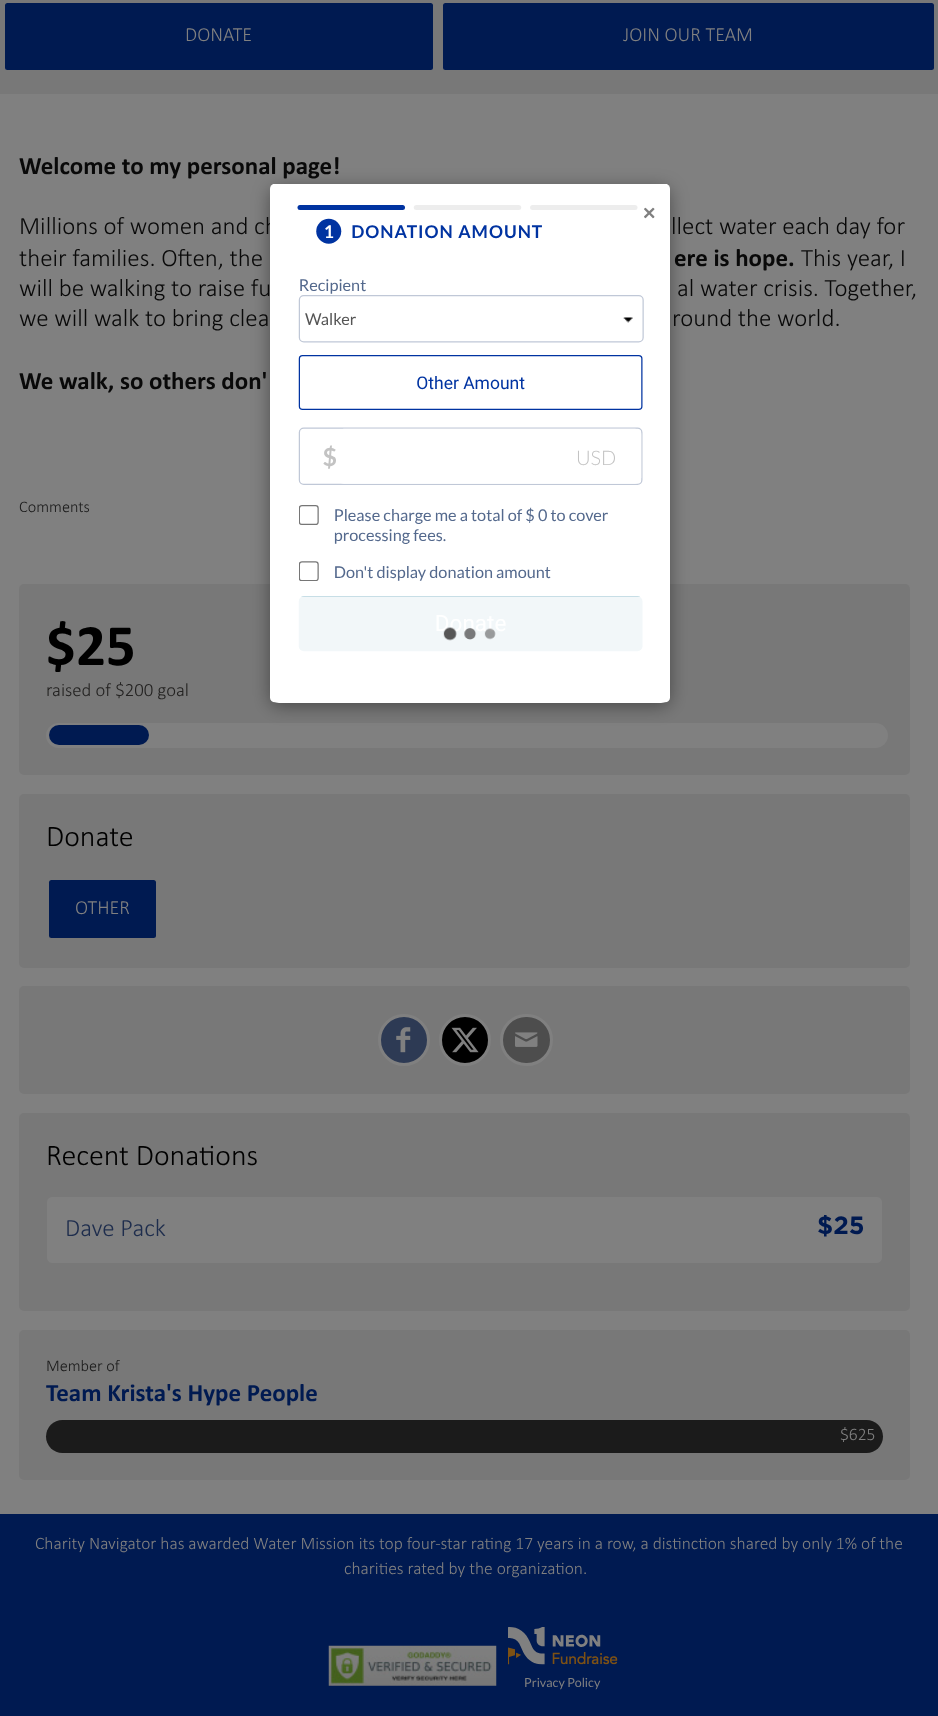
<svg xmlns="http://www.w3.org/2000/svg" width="938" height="1716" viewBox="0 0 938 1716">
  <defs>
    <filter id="blur1" x="-50%" y="-200%" width="200%" height="500%"><feGaussianBlur stdDeviation="9"/></filter>
  </defs>
  <rect width="100%" height="100%" fill="#808080"/>
  <rect x="0" y="0" width="938" height="94" fill="#787878"/>
  <rect x="5" y="3" width="428" height="67" rx="2.5" fill="#001a51"/>
  <text x="185" y="41" font-family="Calibri" font-size="20" font-weight="300" fill="#808080">DONATE</text>
  <rect x="443" y="3" width="491" height="67" rx="2.5" fill="#001a51"/>
  <text x="623" y="41" font-family="Calibri" font-size="20" font-weight="300" fill="#808080">JOIN OUR TEAM</text>
  <text x="19" y="174" font-family="Calibri" font-size="25" font-weight="bold" fill="#090909">Welcome to my personal page!</text>
  <text x="19" y="234" font-family="Calibri" font-size="25" font-weight="300" fill="#090909">Millions of women and ch</text>
  <text x="671" y="234" font-family="Calibri" font-size="25" font-weight="300" fill="#090909">llect water each day for</text>
  <text x="19" y="266" font-family="Calibri" font-size="25" font-weight="300" fill="#090909">their families. Often, the</text>
  <text x="674" y="266" font-family="Calibri" font-size="25" font-weight="bold" fill="#090909">ere is hope.</text>
  <text x="801" y="266" font-family="Calibri" font-size="25" font-weight="300" fill="#090909">This year, I</text>
  <text x="19" y="296" font-family="Calibri" font-size="25" font-weight="300" fill="#090909">will be walking to raise fu</text>
  <text x="677" y="296" font-family="Calibri" font-size="25" font-weight="300" fill="#090909">al water crisis. Together,</text>
  <text x="19" y="326" font-family="Calibri" font-size="25" font-weight="300" fill="#090909">we will walk to bring clea</text>
  <text x="672" y="326" font-family="Calibri" font-size="25" font-weight="300" fill="#090909">round the world.</text>
  <text x="19" y="389" font-family="Calibri" font-size="25" font-weight="bold" fill="#090909">We walk, so others don'</text>
  <text x="19" y="512" font-family="Calibri" font-size="16.25" font-weight="300" fill="#1a1a1a">Comments</text>
  <rect x="19" y="584" width="891" height="191" rx="5" fill="#787878"/>
  <text x="46" y="665" font-family="Calibri" font-size="59" font-weight="bold" fill="#000000">$25</text>
  <text x="46" y="696" font-family="Calibri" font-size="18.75" font-weight="300" fill="#232221">raised of $200 goal</text>
  <rect x="46" y="723" width="842" height="25" rx="12.5" fill="#808080"/>
  <rect x="49" y="725" width="100" height="20" rx="10" fill="#001a51"/>
  <rect x="19" y="794" width="891" height="174" rx="5" fill="#787878"/>
  <text x="46" y="846" font-family="Calibri" font-size="30" font-weight="300" fill="#000000">Donate</text>
  <rect x="49" y="880" width="107" height="58" rx="2.5" fill="#001a51"/>
  <text x="75" y="914" font-family="Calibri" font-size="20" font-weight="300" fill="#808080">OTHER</text>
  <rect x="19" y="986" width="891" height="108" rx="5" fill="#787878"/>
  <circle cx="404" cy="1040" r="24.5" fill="#2d3a54" stroke="#808080" stroke-width="3"/>
  <image x="396" y="1027" width="15" height="26" href="img1.png"/>
  <circle cx="465" cy="1040" r="24.5" fill="#000000" stroke="#808080" stroke-width="3"/>
  <image x="451" y="1027" width="28" height="26" href="img2.png"/>
  <rect x="501.5" y="1015.5" width="50" height="49" rx="24.5" fill="#4d4d4d" stroke="#808080" stroke-width="3"/>
  <image x="515" y="1032" width="23" height="15" href="img3.png"/>
  <rect x="19" y="1113" width="891" height="198" rx="5" fill="#787878"/>
  <text x="46" y="1165" font-family="Calibri" font-size="30" font-weight="300" fill="#000000">Recent Donations</text>
  <rect x="46.5" y="1196.5" width="836" height="67" rx="5.5" fill="#808080" stroke="#787878"/>
  <text x="65" y="1236" font-family="Calibri" font-size="25" font-weight="300" fill="#1e2d4d">Dave Pack</text>
  <text x="817" y="1234" font-family="Gotham" font-size="25" font-weight="bold" fill="#001a51">$25</text>
  <rect x="19" y="1330" width="891" height="150" rx="5" fill="#787878"/>
  <text x="46" y="1371" font-family="Calibri" font-size="16.25" font-weight="300" fill="#1a1a1a">Member of</text>
  <text x="46" y="1401" font-family="Calibri" font-size="25" font-weight="bold" fill="#001a51">Team Krista's Hype People</text>
  <rect x="46" y="1420" width="837" height="33" rx="16.5" fill="#1b1b1b"/>
  <text x="840" y="1440" font-family="Calibri" font-size="17.5" font-weight="300" fill="#808080">$625</text>
  <rect x="270" y="188" width="400" height="518" rx="9" fill="#000000" fill-opacity="0.4" filter="url(#blur1)"/>
  <rect x="270" y="184" width="400" height="519" rx="9" fill="#ffffff"/>
  <image x="270" y="184" width="400" height="519" href="img4.png"/>
  <text x="643" y="220" font-family="Calibri" font-size="25" font-weight="bold" letter-spacing="1" fill="#808080">×</text>
  <rect x="0" y="1514" width="938" height="202" fill="#001a51"/>
  <text x="35" y="1549" font-family="Calibri" font-size="17.5" font-weight="300" fill="#808080">Charity Navigator has awarded Water Mission its top four-star rating 17 years in a row, a distinction shared by only 1% of the</text>
  <text x="344" y="1574" font-family="Calibri" font-size="17.5" font-weight="300" fill="#808080">charities rated by the organization.</text>
  <image x="328" y="1645" width="169" height="41" href="img5.png"/>
  <image x="508" y="1627" width="110" height="38" href="img6.png"/>
  <text x="524" y="1687" font-family="Lato" font-size="12.5" fill="#808080">Privacy Policy</text>
</svg>
